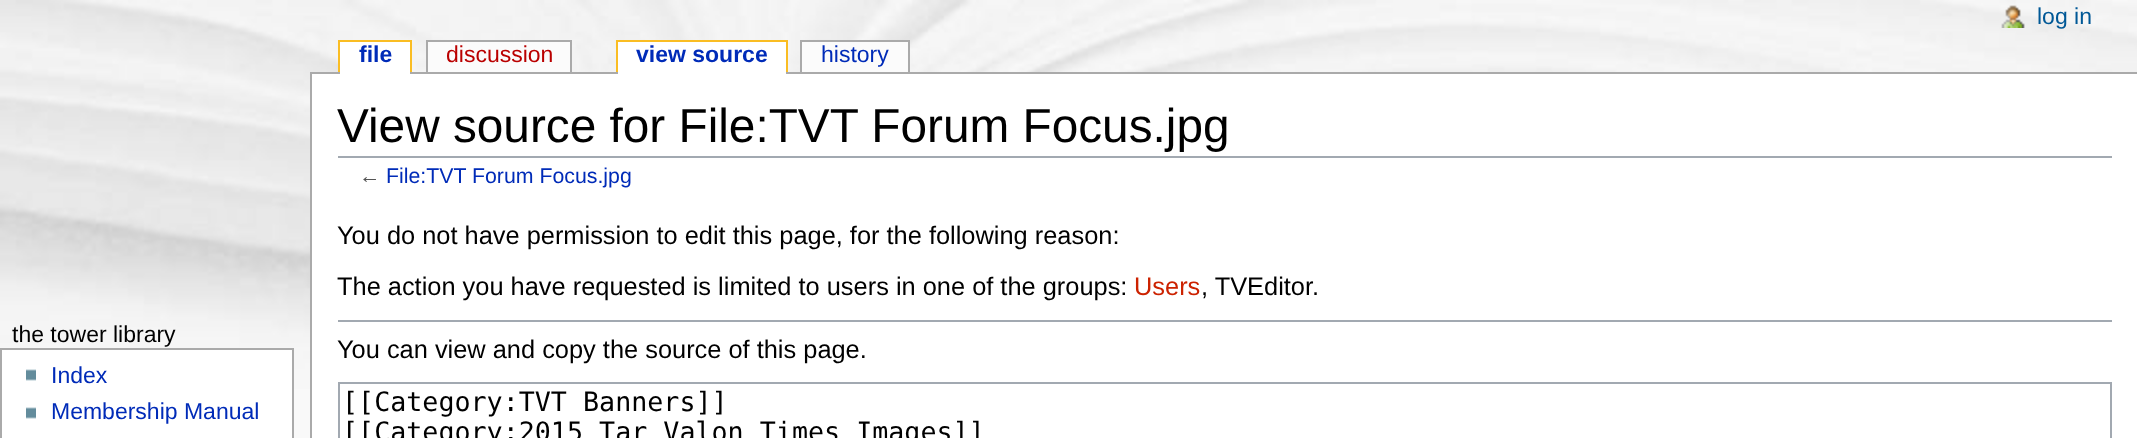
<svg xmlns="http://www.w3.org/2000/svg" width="2137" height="438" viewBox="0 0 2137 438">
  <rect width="100%" height="100%" fill="#f9f9f9"/>
  <image x="0" y="0" width="2137" height="389" href="img1.png"/>
  <image x="2001" y="5" width="24" height="23" href="img2.png"/>
  <text x="2037" y="24" font-family="Liberation Sans" font-size="23" fill="#005896">log in</text>
  <rect x="310" y="72" width="1827" height="2" fill="#aaaaaa"/>
  <rect x="340" y="42" width="70" height="32" fill="#ffffff"/>
  <text x="359" y="62" font-family="Liberation Sans" font-size="23" font-weight="bold" fill="#002bb8">file</text>
  <rect x="338" y="40" width="74" height="2" fill="#fabd23"/>
  <rect x="410" y="40" width="2" height="32" fill="#fabd23"/>
  <rect x="338" y="40" width="2" height="32" fill="#fabd23"/>
  <rect x="428" y="42" width="142" height="30" fill="#fbfbfb"/>
  <text x="446" y="62" font-family="Liberation Sans" font-size="23" fill="#ba0000">discussion</text>
  <rect x="426" y="40" width="146" height="2" fill="#aaaaaa"/>
  <rect x="570" y="40" width="2" height="32" fill="#aaaaaa"/>
  <rect x="426" y="40" width="2" height="32" fill="#aaaaaa"/>
  <rect x="618" y="42" width="168" height="32" fill="#ffffff"/>
  <text x="636" y="62" font-family="Liberation Sans" font-size="23" font-weight="bold" fill="#002bb8">view source</text>
  <rect x="616" y="40" width="172" height="2" fill="#fabd23"/>
  <rect x="786" y="40" width="2" height="32" fill="#fabd23"/>
  <rect x="616" y="40" width="2" height="32" fill="#fabd23"/>
  <rect x="802" y="42" width="106" height="30" fill="#fbfbfb"/>
  <text x="821" y="62" font-family="Liberation Sans" font-size="23" fill="#002bb8">history</text>
  <rect x="800" y="40" width="110" height="2" fill="#aaaaaa"/>
  <rect x="908" y="40" width="2" height="32" fill="#aaaaaa"/>
  <rect x="800" y="40" width="2" height="32" fill="#aaaaaa"/>
  <text x="12" y="342" font-family="Liberation Sans" font-size="23" fill="#000000">the tower library</text>
  <rect x="1" y="349" width="292" height="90" fill="#ffffff" stroke="#aaaaaa" stroke-width="2"/>
  <image x="26" y="369" width="10" height="12" href="img3.png"/>
  <text x="51" y="383" font-family="Liberation Sans" font-size="23" fill="#002bb8">Index</text>
  <image x="26" y="407" width="10" height="12" href="img3.png"/>
  <text x="51" y="419" font-family="Liberation Sans" font-size="23" fill="#002bb8">Membership Manual</text>
  <rect x="312" y="74" width="1825" height="364" fill="#ffffff"/>
  <rect x="310" y="72" width="2" height="366" fill="#aaaaaa"/>
  <rect x="338" y="156" width="1774" height="2" fill="#a2a9b1"/>
  <text x="337" y="142" font-family="Liberation Sans" font-size="47.75" fill="#000000">View source for File:TVT Forum Focus.jpg</text>
  <text x="359" y="183" font-family="Liberation Sans" font-size="21.3" fill="#545454">←</text>
  <text x="386" y="183" font-family="Liberation Sans" font-size="21.3" fill="#002bb8">File:TVT Forum Focus.jpg</text>
  <text x="337" y="244" font-family="Liberation Sans" font-size="25.4" fill="#000000">You do not have permission to edit this page, for the following reason:</text>
  <text x="337" y="295" font-family="Liberation Sans" font-size="25.4" fill="#000000">The action you have requested is limited to users in one of the groups:</text>
  <text x="1134" y="295" font-family="Liberation Sans" font-size="25.4" fill="#cc2200">Users</text>
  <text x="1201" y="295" font-family="Liberation Sans" font-size="25.4" fill="#000000">, TVEditor.</text>
  <rect x="338" y="320" width="1774" height="2" fill="#a2a9b1"/>
  <text x="337" y="358" font-family="Liberation Sans" font-size="25.4" fill="#000000">You can view and copy the source of this page.</text>
  <rect x="339" y="383" width="1772" height="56" fill="none" stroke="#a2a9b1" stroke-width="2"/>
  <text x="342" y="411" font-family="DejaVu Sans Mono" font-size="26.7" fill="#000000">[[Category:TVT Banners]]</text>
  <text x="342" y="441" font-family="DejaVu Sans Mono" font-size="26.7" fill="#000000">[[Category:2015 Tar Valon Times Images]]</text>
</svg>
